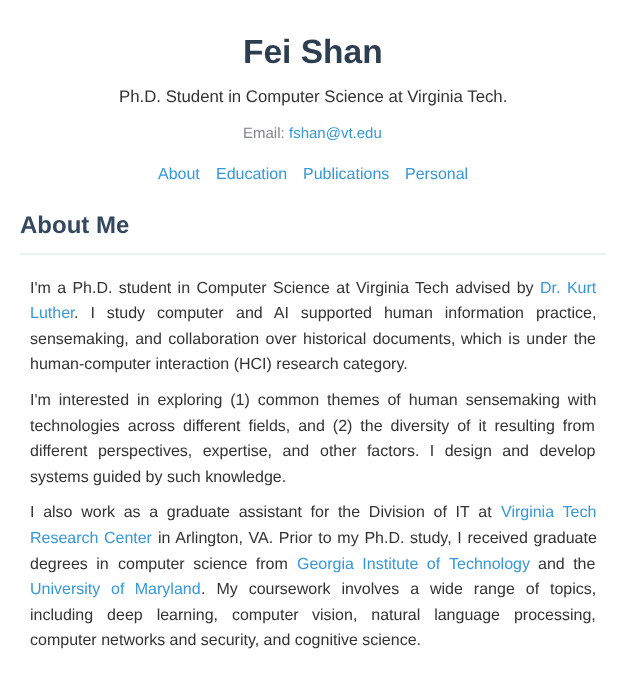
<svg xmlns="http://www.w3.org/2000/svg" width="626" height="689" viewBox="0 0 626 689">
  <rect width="100%" height="100%" fill="#ffffff"/>
  <text x="243" y="63" font-family="Liberation Sans" font-size="33.5" font-weight="bold" fill="#2c3e50">Fei Shan</text>
  <text x="119" y="102" font-family="Liberation Sans" font-size="16.8" fill="#333333">Ph.D. Student in Computer Science at Virginia Tech.</text>
  <text x="243" y="138" font-family="Liberation Sans" font-size="15" fill="#7f828d">Email:</text>
  <text x="289" y="138" font-family="Liberation Sans" font-size="15" fill="#3498db">fshan@vt.edu</text>
  <text x="158" y="179" font-family="Liberation Sans" font-size="16" fill="#3498db">About</text>
  <text x="216" y="179" font-family="Liberation Sans" font-size="16" fill="#3498db">Education</text>
  <text x="303" y="179" font-family="Liberation Sans" font-size="16" fill="#3498db">Publications</text>
  <text x="405" y="179" font-family="Liberation Sans" font-size="16" fill="#3498db">Personal</text>
  <rect x="20" y="253" width="586" height="2" fill="#ecf0f1"/>
  <text x="20" y="233" font-family="Liberation Sans" font-size="24" font-weight="bold" fill="#34495e">About Me</text>
  <text x="30" y="293" word-spacing="1.9" font-family="Liberation Sans" font-size="16" fill="#333333">I'm a Ph.D. student in Computer Science at Virginia Tech advised by</text>
  <text x="540" y="293" word-spacing="2" font-family="Liberation Sans" font-size="16" fill="#3498db">Dr. Kurt</text>
  <text x="30" y="318" font-family="Liberation Sans" font-size="16" fill="#3498db">Luther</text>
  <text x="74" y="318" word-spacing="7.5" font-family="Liberation Sans" font-size="16" fill="#333333">. I study computer</text>
  <text x="236" y="318" word-spacing="7.5" font-family="Liberation Sans" font-size="16" fill="#333333">and AI supported human information practice,</text>
  <text x="30" y="344" word-spacing="2" font-family="Liberation Sans" font-size="16" fill="#333333">sensemaking, and collaboration over historical documents,</text>
  <text x="461" y="344" word-spacing="2" font-family="Liberation Sans" font-size="16" fill="#333333">which is under the</text>
  <text x="30" y="369" font-family="Liberation Sans" font-size="16" fill="#333333">human-computer interaction (HCI) research category.</text>
  <text x="30" y="405" word-spacing="3.5" font-family="Liberation Sans" font-size="16" fill="#333333">I'm interested in exploring (1) common themes of human sensemaking with</text>
  <text x="30" y="431" word-spacing="3.5" font-family="Liberation Sans" font-size="16" fill="#333333">technologies across</text>
  <text x="183" y="431" word-spacing="3.5" font-family="Liberation Sans" font-size="16" fill="#333333">different fields, and (2) the diversity of it resulting from</text>
  <text x="30" y="456" word-spacing="6" font-family="Liberation Sans" font-size="16" fill="#333333">different perspectives, expertise, and</text>
  <text x="320" y="456" word-spacing="6" font-family="Liberation Sans" font-size="16" fill="#333333">other factors. I design and develop</text>
  <text x="30" y="482" font-family="Liberation Sans" font-size="16" fill="#333333">systems guided by such knowledge.</text>
  <text x="30" y="517" word-spacing="4.25" font-family="Liberation Sans" font-size="16" fill="#333333">I also work as a graduate assistant for the Division of IT at</text>
  <text x="501" y="517" word-spacing="4.25" font-family="Liberation Sans" font-size="16" fill="#3498db">Virginia Tech</text>
  <text x="30" y="543" word-spacing="1" font-family="Liberation Sans" font-size="16" fill="#3498db">Research Center</text>
  <text x="158" y="543" word-spacing="1.25" font-family="Liberation Sans" font-size="16" fill="#333333">in Arlington, VA. Prior to my Ph.D. study, I received graduate</text>
  <text x="30" y="569" word-spacing="4" font-family="Liberation Sans" font-size="16" fill="#333333">degrees in</text>
  <text x="118" y="569" word-spacing="4" font-family="Liberation Sans" font-size="16" fill="#333333">computer science from</text>
  <text x="297" y="569" word-spacing="4" font-family="Liberation Sans" font-size="16" fill="#3498db">Georgia Institute of</text>
  <text x="449" y="569" font-family="Liberation Sans" font-size="16" fill="#3498db">Technology</text>
  <text x="538" y="569" word-spacing="4" font-family="Liberation Sans" font-size="16" fill="#333333">and the</text>
  <text x="30" y="594" font-family="Liberation Sans" font-size="16" fill="#3498db">University</text>
  <text x="111" y="594" word-spacing="6" font-family="Liberation Sans" font-size="16" fill="#3498db">of Maryland</text>
  <text x="201" y="594" word-spacing="6.5" font-family="Liberation Sans" font-size="16" fill="#333333">. My coursework involves a wide range of topics,</text>
  <text x="30" y="620" word-spacing="9.5" font-family="Liberation Sans" font-size="16" fill="#333333">including deep learning, computer</text>
  <text x="312" y="620" word-spacing="9.5" font-family="Liberation Sans" font-size="16" fill="#333333">vision, natural language processing,</text>
  <text x="30" y="645" font-family="Liberation Sans" font-size="16" fill="#333333">computer networks and security, and cognitive science.</text>
</svg>
